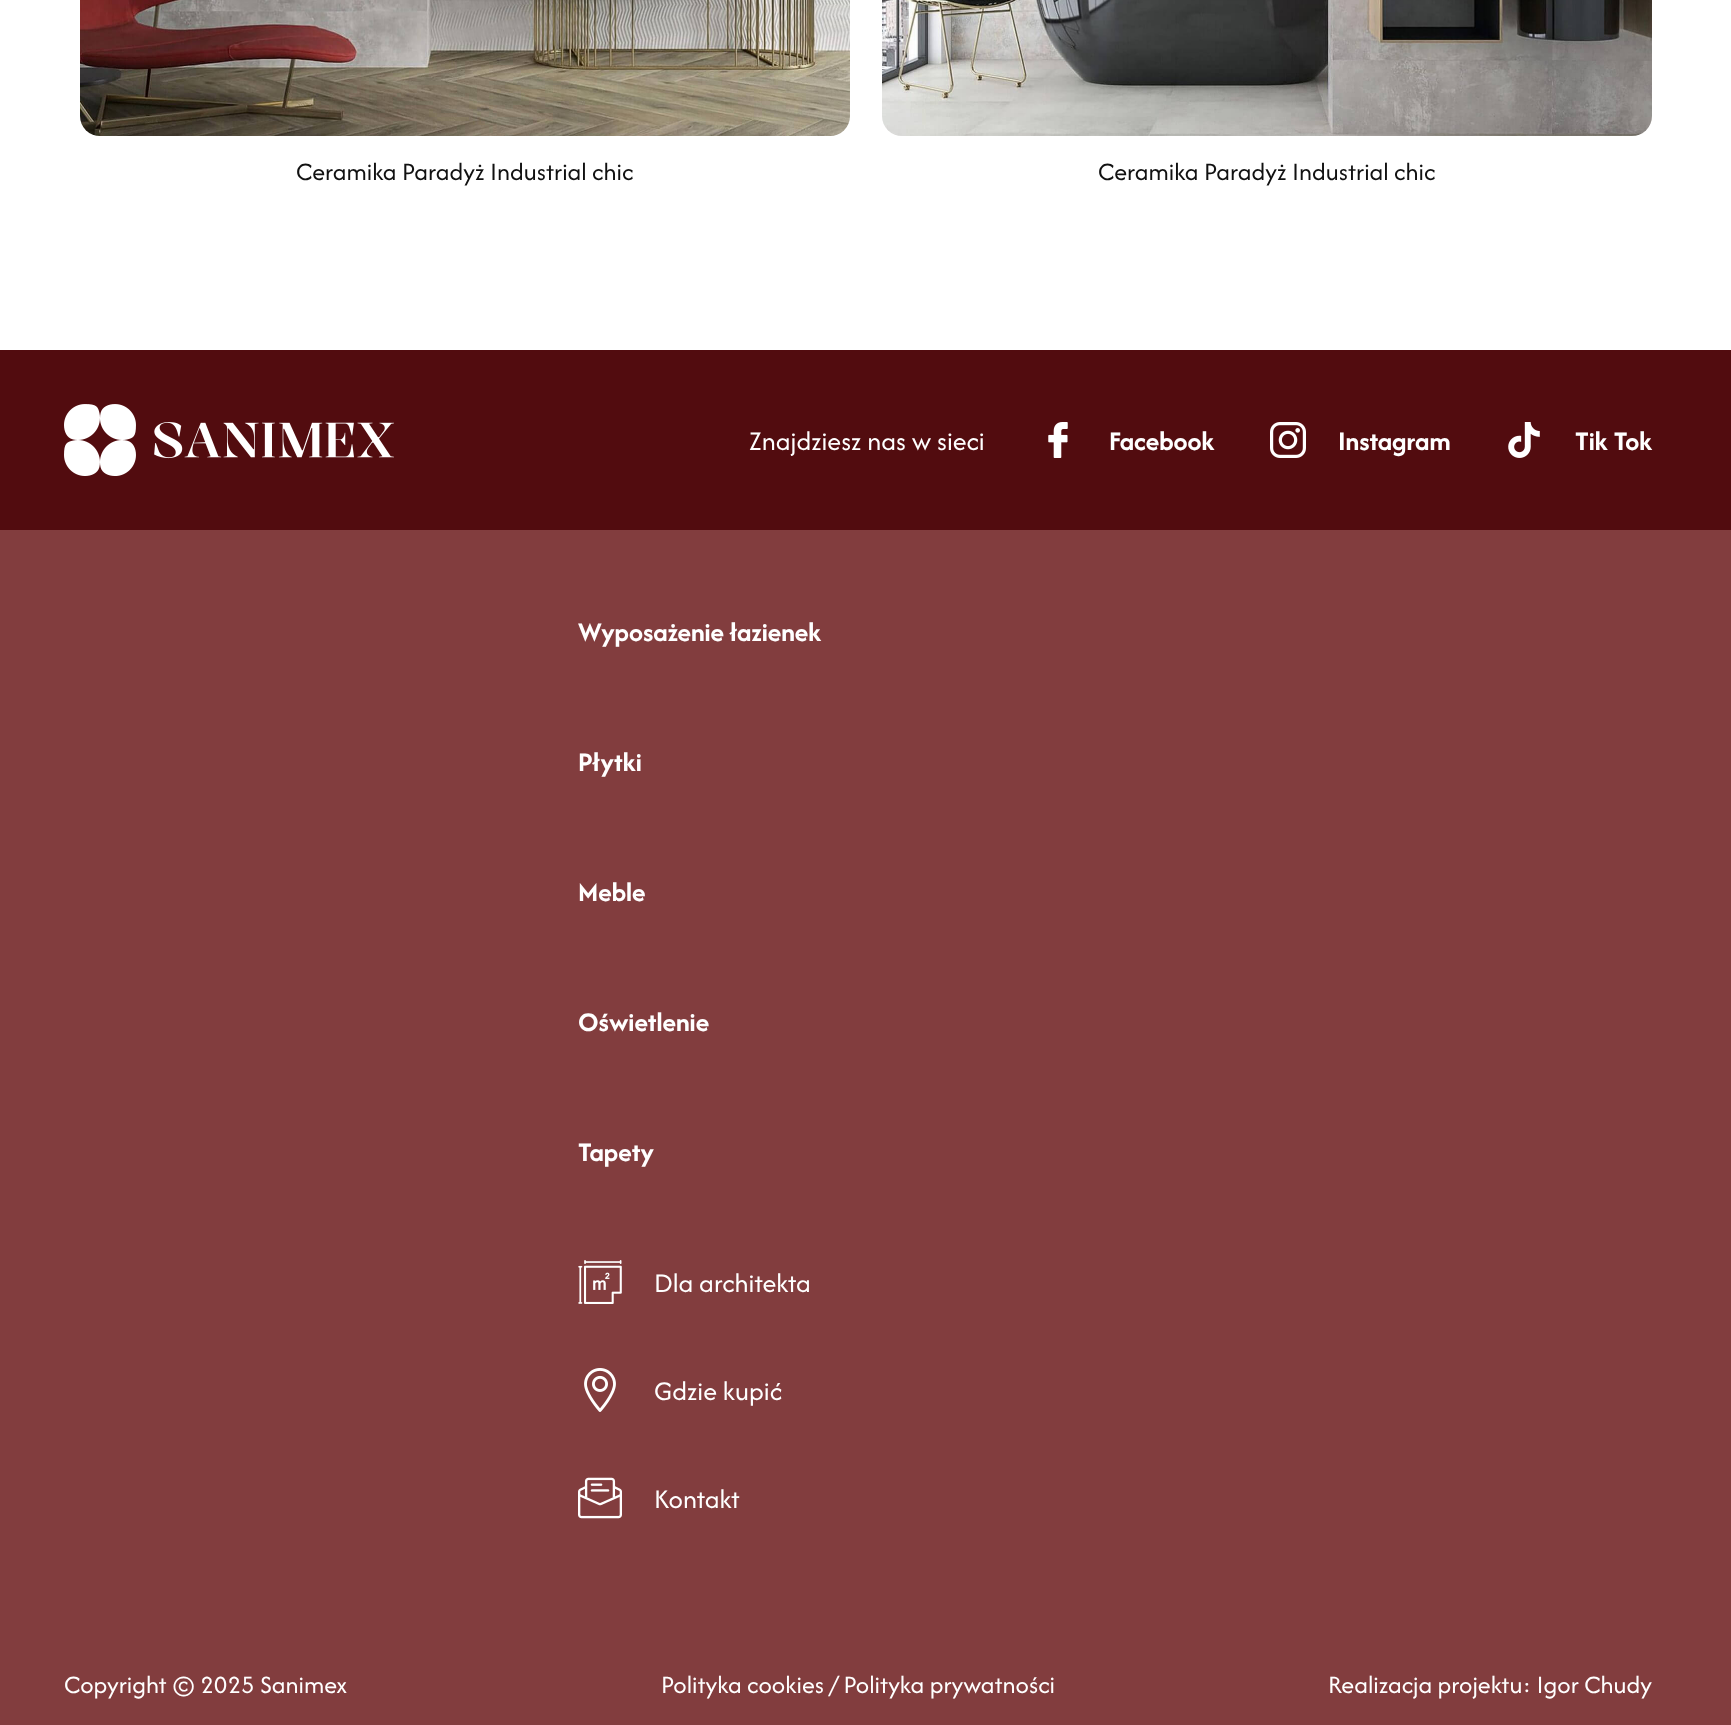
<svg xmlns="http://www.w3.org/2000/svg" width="1731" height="1725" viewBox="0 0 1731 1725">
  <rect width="100%" height="100%" fill="#ffffff"/>
  <image x="80" y="0" width="770" height="136" href="img1.png"/>
  <text x="296" y="180" font-family="Afacad" font-size="26" fill="#111111">Ceramika Paradyż Industrial chic</text>
  <image x="882" y="0" width="770" height="136" href="img2.png"/>
  <text x="1098" y="180" font-family="Afacad" font-size="26" fill="#111111">Ceramika Paradyż Industrial chic</text>
  <rect x="0" y="350" width="1731" height="180" fill="#520c0f"/>
  <image x="64" y="404" width="330" height="72" href="img3.png"/>
  <text x="749" y="450" font-family="Afacad" font-size="28" fill="#ffffff">Znajdziesz nas w sieci</text>
  <image x="1048" y="422" width="20" height="36" href="img4.png"/>
  <text x="1109" y="450" font-family="Afacad" font-size="28" font-weight="bold" fill="#ffffff">Facebook</text>
  <image x="1270" y="422" width="36" height="36" href="img5.png"/>
  <text x="1338" y="450" font-family="Afacad" font-size="28" font-weight="bold" fill="#ffffff">Instagram</text>
  <image x="1508" y="422" width="32" height="36" href="img6.png"/>
  <text x="1575" y="450" font-family="Afacad" font-size="28" font-weight="bold" fill="#ffffff">Tik Tok</text>
  <rect x="0" y="530" width="1731" height="1195" fill="#823d3e"/>
  <text x="578" y="641" font-family="Afacad" font-size="28" font-weight="bold" fill="#ffffff">Wyposażenie łazienek</text>
  <text x="578" y="771" font-family="Afacad" font-size="28" font-weight="bold" fill="#ffffff">Płytki</text>
  <text x="578" y="901" font-family="Afacad" font-size="28" font-weight="bold" fill="#ffffff">Meble</text>
  <text x="578" y="1031" font-family="Afacad" font-size="28" font-weight="bold" fill="#ffffff">Oświetlenie</text>
  <text x="578" y="1161" font-family="Afacad" font-size="28" font-weight="bold" fill="#ffffff">Tapety</text>
  <image x="578" y="1260" width="44" height="44" href="img7.png"/>
  <text x="654" y="1292" font-family="Afacad" font-size="28" fill="#ffffff">Dla architekta</text>
  <image x="584" y="1368" width="32" height="44" href="img8.png"/>
  <text x="654" y="1400" font-family="Afacad" font-size="28" fill="#ffffff">Gdzie kupić</text>
  <image x="578" y="1477" width="44" height="42" href="img9.png"/>
  <text x="654" y="1508" font-family="Afacad" font-size="28" fill="#ffffff">Kontakt</text>
  <text x="64" y="1693" font-family="Afacad" font-size="26" fill="#ffffff">Copyright © 2025 Sanimex</text>
  <text x="661" y="1693" font-family="Afacad" font-size="26" fill="#ffffff">Polityka cookies / Polityka prywatności</text>
  <text x="1328" y="1693" font-family="Afacad" font-size="26" fill="#ffffff">Realizacja projektu: Igor Chudy</text>
</svg>
